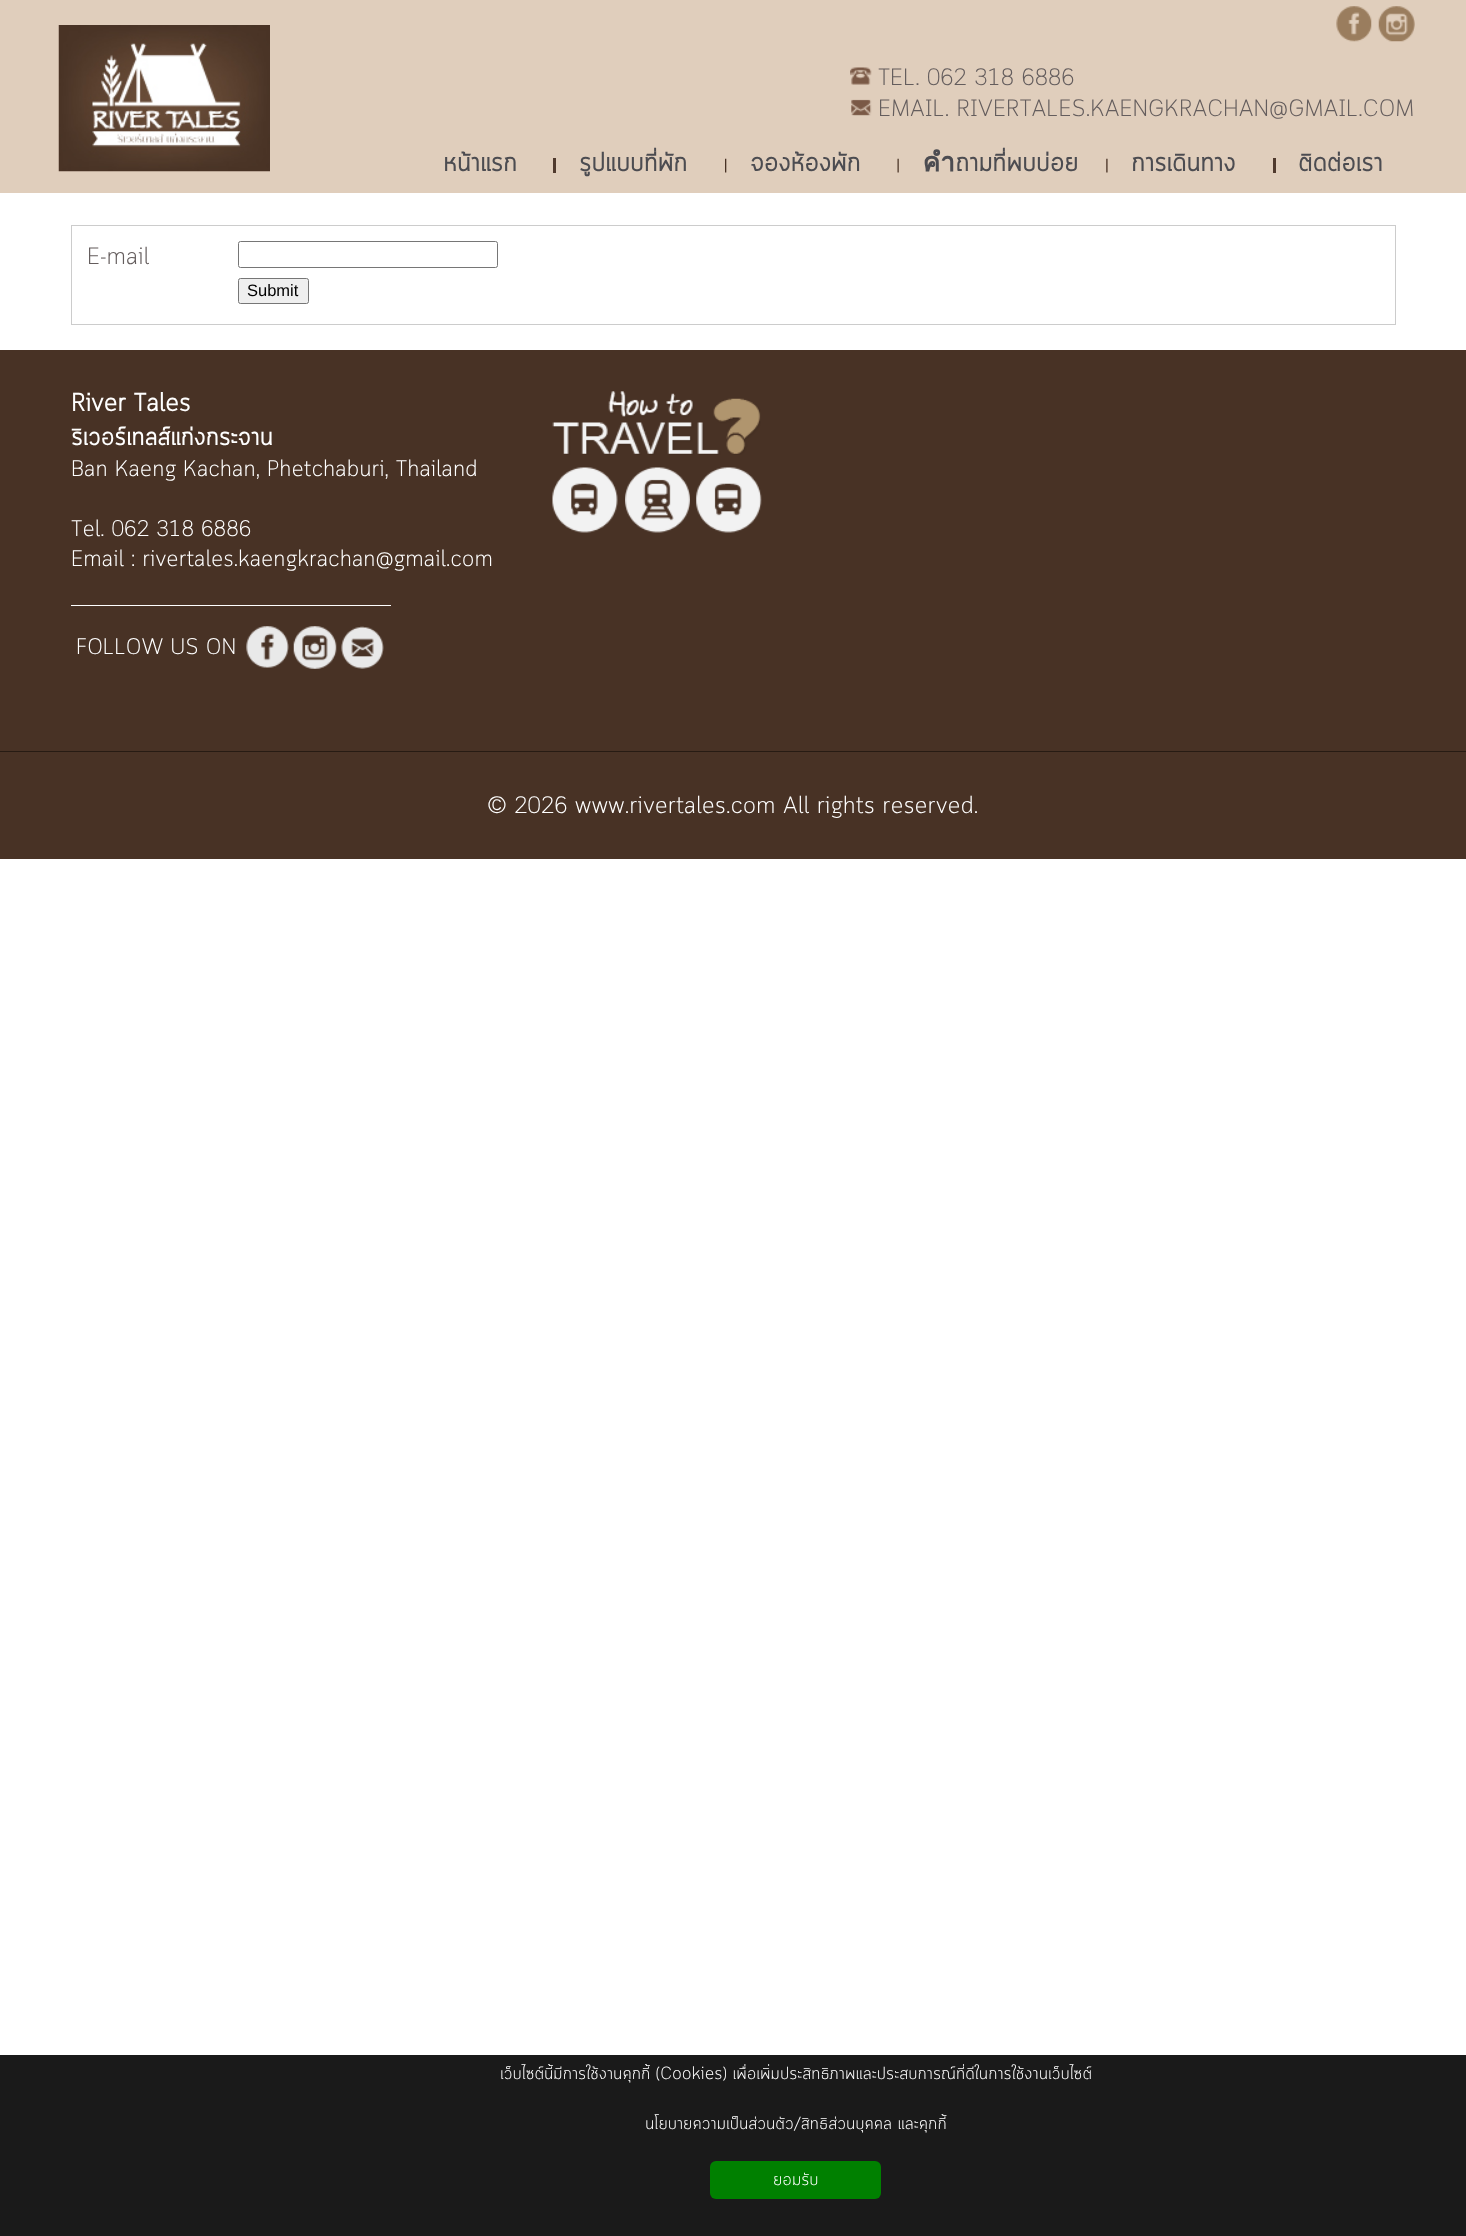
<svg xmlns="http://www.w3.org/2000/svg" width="1466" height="2236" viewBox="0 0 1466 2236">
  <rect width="100%" height="100%" fill="#ffffff"/>
  <rect x="0" y="0" width="1466" height="193" fill="#e0cebc"/>
  <image x="58" y="25" width="212" height="147" href="img1.png"/>
  <image x="1336" y="6" width="36" height="36" href="img2.png"/>
  <image x="1378" y="6" width="37" height="36" href="img3.png"/>
  <image x="850" y="67" width="22" height="18" href="img4.png"/>
  <text x="878" y="85" font-family="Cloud" font-size="23.75" font-weight="300" fill="#645d5d">TEL. 062 318 6886</text>
  <image x="851" y="99" width="21" height="17" href="img5.png"/>
  <text x="878" y="116" font-family="Cloud" font-size="23.75" font-weight="300" fill="#645d5d">EMAIL. RIVERTALES.KAENGKRACHAN@GMAIL.COM</text>
  <text x="443" y="171" font-family="Cloud" font-size="26.25" font-weight="bold" fill="#4c4c51">หน้าแรก</text>
  <rect x="553" y="158" width="3" height="15" fill="#503a2d"/>
  <text x="579" y="171" font-family="Cloud" font-size="26.25" font-weight="bold" fill="#4c4c51">รูปแบบที่พัก</text>
  <image x="725" y="158" width="2" height="15" href="img6.png"/>
  <text x="750" y="171" font-family="Cloud" font-size="26.25" font-weight="bold" fill="#4c4c51">จองห้องพัก</text>
  <image x="897" y="158" width="2" height="15" href="img7.png"/>
  <text x="923" y="171" font-family="Cloud" font-size="26.25" font-weight="bold" fill="#4c4c51">คำถามที่พบบ่อย</text>
  <image x="1106" y="158" width="2" height="15" href="img8.png"/>
  <text x="1131" y="171" font-family="Cloud" font-size="26.25" font-weight="bold" fill="#4c4c51">การเดินทาง</text>
  <rect x="1273" y="158" width="3" height="15" fill="#503a2d"/>
  <text x="1298" y="171" font-family="Cloud" font-size="26.25" font-weight="bold" fill="#4c4c51">ติดต่อเรา</text>
  <rect x="71.5" y="225.5" width="1324" height="99" fill="none" stroke="#cccccc"/>
  <text x="87" y="264" font-family="Cloud" font-size="23.75" font-weight="300" fill="#645d5d">E-mail</text>
  <rect x="238.5" y="241.5" width="259" height="26" rx="2" fill="none" stroke="#767676"/>
  <rect x="238.5" y="278.5" width="70" height="25" rx="2" fill="#efefef" stroke="#767676"/>
  <text x="247" y="296" font-family="Liberation Sans" font-size="16.5" fill="#000000">Submit</text>
  <rect x="0" y="350" width="1466" height="401" fill="#483225"/>
  <text x="71" y="411" font-family="Cloud" font-size="25" font-weight="bold" fill="#ffffff">River Tales</text>
  <text x="71" y="445" font-family="Cloud" font-size="25" font-weight="bold" fill="#ffffff">ริเวอร์เทลส์แก่งกระจาน</text>
  <text x="71" y="476" font-family="Cloud" font-size="22.5" font-weight="300" fill="#ffffff">Ban Kaeng Kachan, Phetchaburi, Thailand</text>
  <text x="71" y="536" font-family="Cloud" font-size="22.5" font-weight="300" fill="#ffffff">Tel. 062 318 6886</text>
  <text x="71" y="566" font-family="Cloud" font-size="22.5" font-weight="300" fill="#ffffff">Email : rivertales.kaengkrachan@gmail.com</text>
  <rect x="71" y="605" width="320" height="1" fill="#ffffff"/>
  <text x="76" y="654" font-family="Cloud" font-size="22.5" font-weight="300" fill="#ffffff">FOLLOW US ON</text>
  <image x="246" y="626" width="43" height="42" href="img9.png"/>
  <image x="293" y="626" width="44" height="43" href="img10.png"/>
  <image x="341" y="626" width="43" height="43" href="img11.png"/>
  <image x="552" y="391" width="209" height="64" href="img12.png"/>
  <image x="552" y="467" width="66" height="66" href="img13.png"/>
  <image x="625" y="467" width="65" height="66" href="img14.png"/>
  <image x="696" y="467" width="66" height="66" href="img15.png"/>
  <rect x="0" y="752" width="1466" height="107" fill="#483225"/>
  <rect x="0" y="751" width="1466" height="1" fill="#271b13"/>
  <text x="487" y="813" font-family="Cloud" font-size="23.75" font-weight="300" fill="#ffffff">© 2026 www.rivertales.com All rights reserved.</text>
  <rect x="0" y="2055" width="1466" height="181" fill="#1a1a1a"/>
  <text x="500" y="2079" font-family="Cloud" font-size="17.5" font-weight="300" fill="#ffffff">เว็บไซต์นี้มีการใช้งานคุกกี้ (Cookies) เพื่อเพิ่มประสิทธิภาพและประสบการณ์ที่ดีในการใช้งานเว็บไซต์</text>
  <text x="645" y="2129" font-family="Cloud" font-size="17.5" font-weight="300" fill="#ffffff">นโยบายความเป็นส่วนตัว/สิทธิส่วนบุคคล และคุกกี้</text>
  <rect x="710" y="2161" width="171" height="38" rx="6" fill="#008000"/>
  <text x="773" y="2185" font-family="Cloud" font-size="17.5" font-weight="300" fill="#ffffff">ยอมรับ</text>
</svg>
